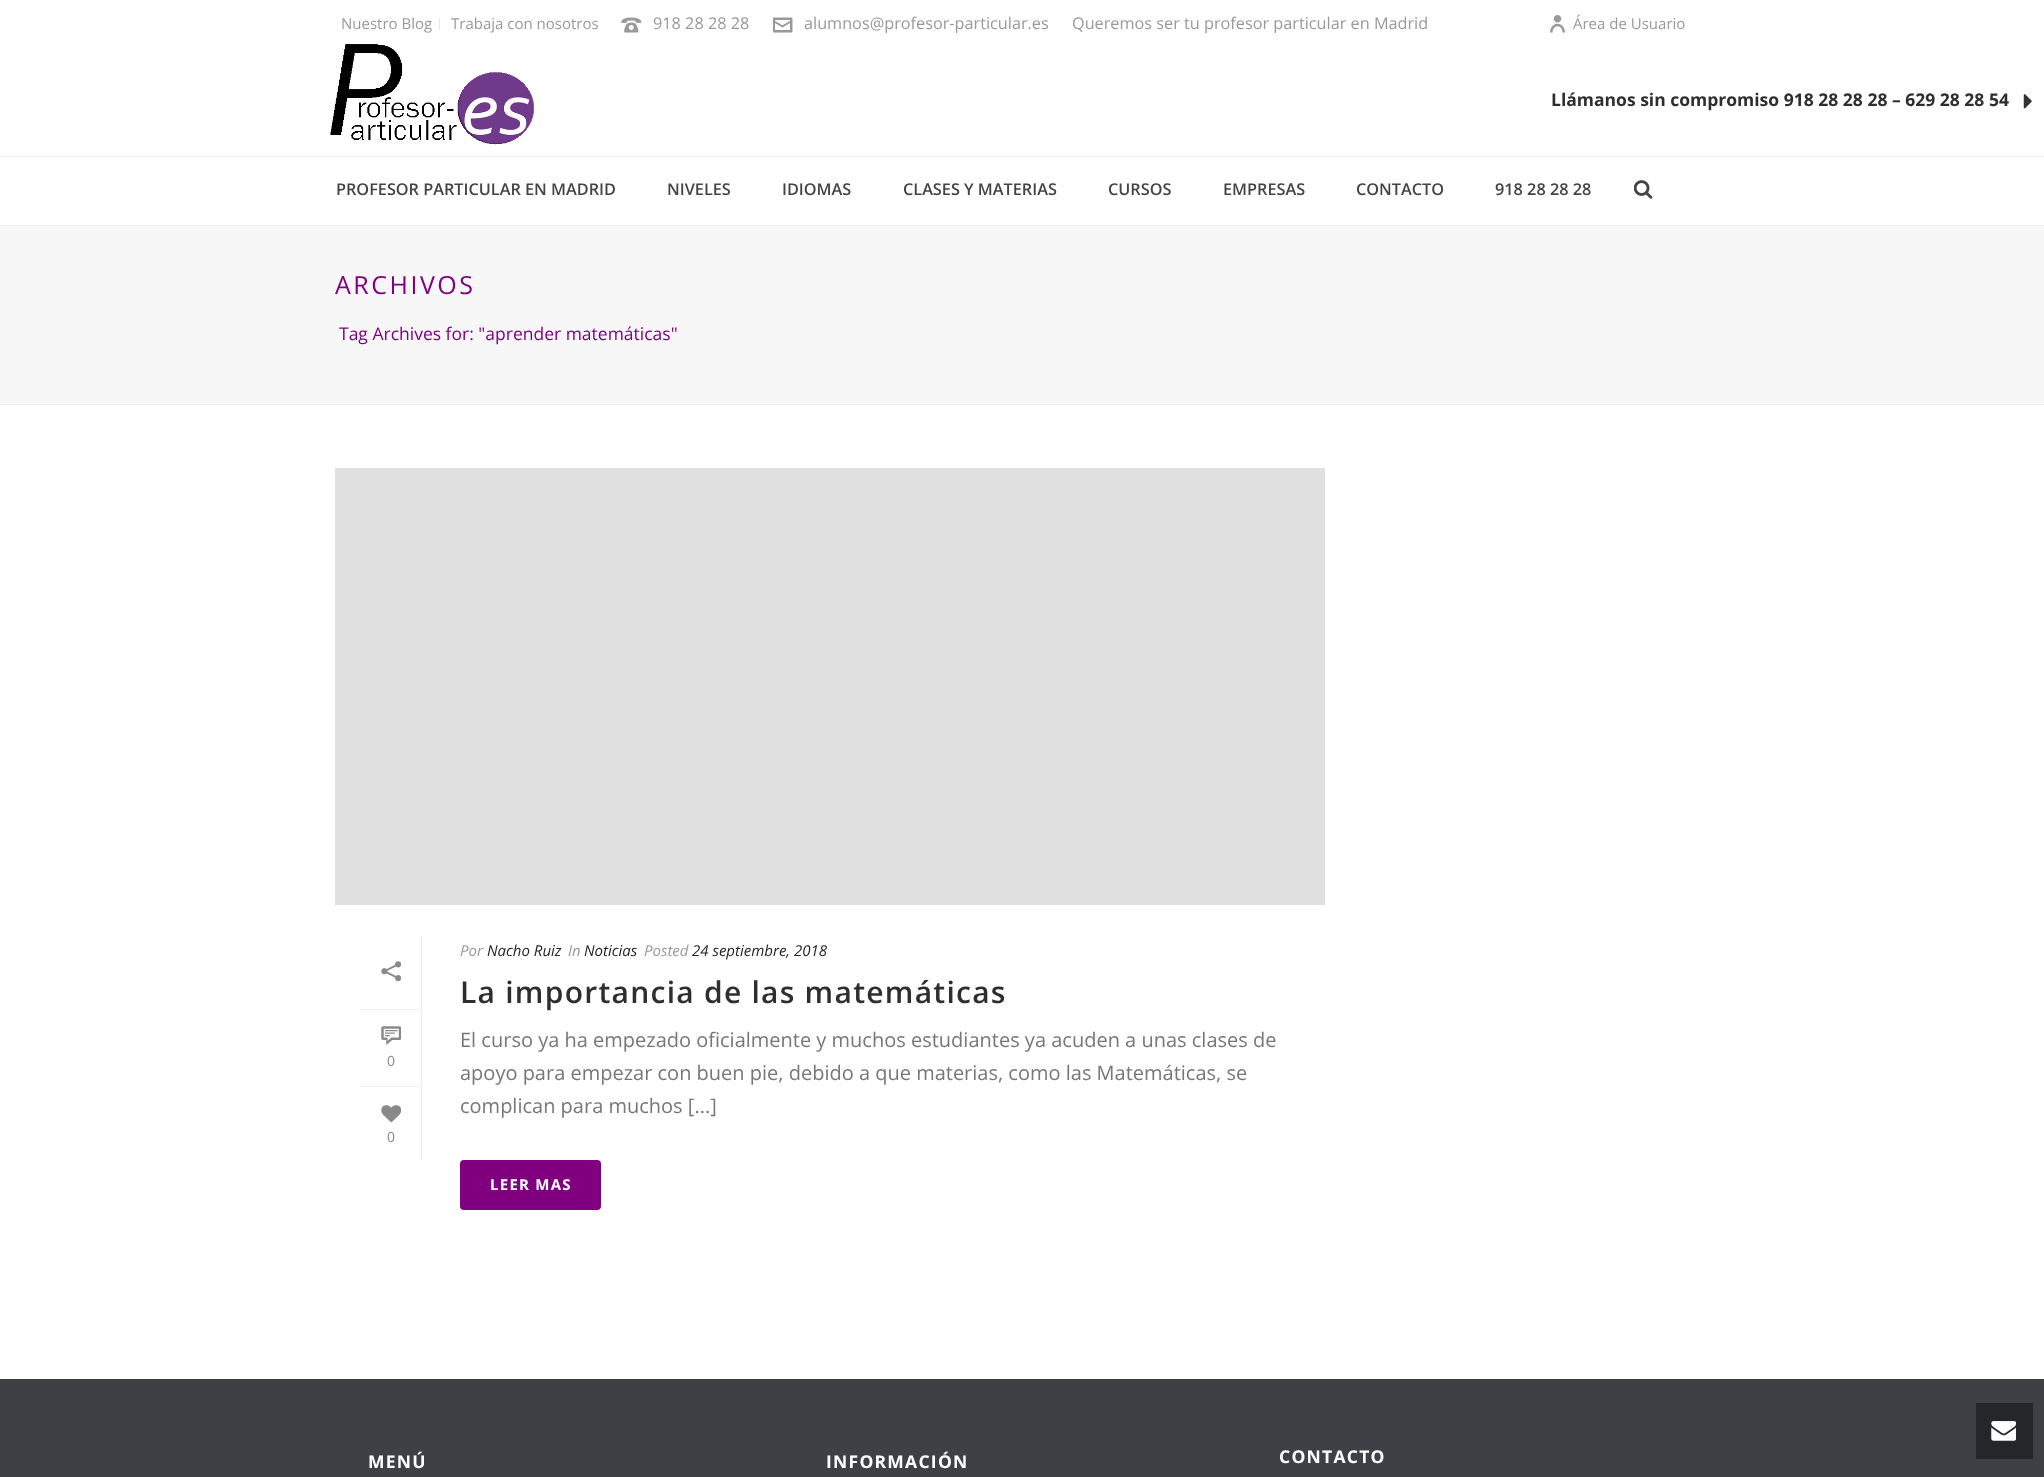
<svg xmlns="http://www.w3.org/2000/svg" width="2044" height="1477" viewBox="0 0 2044 1477">
  <rect width="100%" height="100%" fill="#ffffff"/>
  <rect x="0" y="404" width="2044" height="1" fill="#ededed"/>
  <rect x="439" y="18" width="1" height="12" fill="#e6e6e6"/>
  <text x="341" y="29" font-family="Open Sans" font-size="15" fill="#999999">Nuestro Blog</text>
  <text x="451" y="29" font-family="Open Sans" font-size="15" fill="#999999">Trabaja con nosotros</text>
  <image x="621" y="17" width="21" height="16" href="img1.png"/>
  <text x="653" y="29" font-family="Open Sans" font-size="16.25" fill="#999999">918 28 28 28</text>
  <image x="773" y="17" width="20" height="16" href="img2.png"/>
  <text x="804" y="29" font-family="Open Sans" font-size="16.25" fill="#999999">alumnos@profesor-particular.es</text>
  <text x="1072" y="29" font-family="Open Sans" font-size="16.25" fill="#999999">Queremos ser tu profesor particular en Madrid</text>
  <image x="1550" y="15" width="15" height="18" href="img3.png"/>
  <text x="1573" y="29" font-family="Open Sans" font-size="15" fill="#999999">Área de Usuario</text>
  <rect x="0" y="225" width="2044" height="1" fill="#ededed"/>
  <image x="330" y="44" width="204" height="101" href="img4.png"/>
  <text x="1551" y="106" font-family="Open Sans" font-size="17.5" font-weight="bold" fill="#2e2e2e">Llámanos sin compromiso 918 28 28 28 – 629 28 28 54</text>
  <image x="2023" y="94" width="9" height="15" href="img5.png"/>
  <rect x="0" y="156" width="2044" height="1" fill="#ededed"/>
  <text x="336" y="195" font-family="Open Sans" font-size="16.25" font-weight="600" fill="#444444">PROFESOR PARTICULAR EN MADRID</text>
  <text x="667" y="195" font-family="Open Sans" font-size="16.25" font-weight="600" fill="#444444">NIVELES</text>
  <text x="782" y="195" font-family="Open Sans" font-size="16.25" font-weight="600" fill="#444444">IDIOMAS</text>
  <text x="903" y="195" font-family="Open Sans" font-size="16.25" font-weight="600" fill="#444444">CLASES Y MATERIAS</text>
  <text x="1108" y="195" font-family="Open Sans" font-size="16.25" font-weight="600" fill="#444444">CURSOS</text>
  <text x="1223" y="195" font-family="Open Sans" font-size="16.25" font-weight="600" fill="#444444">EMPRESAS</text>
  <text x="1356" y="195" font-family="Open Sans" font-size="16.25" font-weight="600" fill="#444444">CONTACTO</text>
  <text x="1495" y="195" font-family="Open Sans" font-size="16.25" font-weight="600" fill="#444444">918 28 28 28</text>
  <image x="1634" y="180" width="19" height="19" href="img6.png"/>
  <rect x="0" y="226" width="2044" height="178" fill="#f7f7f7"/>
  <text x="335" y="294" font-family="Open Sans" font-size="25" letter-spacing="2.5" fill="#800080">ARCHIVOS</text>
  <text x="339" y="340" font-family="Open Sans" font-size="17.5" fill="#800080">Tag Archives for: "aprender matemáticas"</text>
  <rect x="335" y="468" width="990" height="437" fill="#e0e0e0"/>
  <rect x="421" y="936" width="1" height="224" fill="#efefef"/>
  <rect x="360" y="1009" width="61" height="1" fill="#efefef"/>
  <image x="381" y="961" width="20" height="20" href="img7.png"/>
  <rect x="360" y="1086" width="61" height="1" fill="#efefef"/>
  <image x="381" y="1026" width="20" height="19" href="img8.png"/>
  <text x="387" y="1066" font-family="Open Sans" font-size="14" fill="#898989">0</text>
  <image x="381" y="1105" width="20" height="18" href="img9.png"/>
  <text x="387" y="1142" font-family="Open Sans" font-size="14" fill="#898989">0</text>
  <text x="460" y="956" font-family="Open Sans" font-size="15" font-style="italic" fill="#999999">Por</text>
  <text x="487" y="956" font-family="Open Sans" font-size="15" font-style="italic" fill="#252525">Nacho Ruiz</text>
  <text x="568" y="956" font-family="Open Sans" font-size="15" font-style="italic" fill="#999999">In</text>
  <text x="584" y="956" font-family="Open Sans" font-size="15" font-style="italic" fill="#252525">Noticias</text>
  <text x="644" y="956" font-family="Open Sans" font-size="15" font-style="italic" fill="#999999">Posted</text>
  <text x="692" y="956" font-family="Open Sans" font-size="15" font-style="italic" fill="#252525">24 septiembre, 2018</text>
  <text x="460" y="1003" font-family="Open Sans" font-size="30" font-weight="600" letter-spacing="1.25" fill="#2e2e2e">La importancia de las matemáticas</text>
  <text x="460" y="1047" font-family="Open Sans" font-size="20" fill="#777777">El curso ya ha empezado oficialmente y muchos estudiantes ya acuden a unas clases de</text>
  <text x="460" y="1080" font-family="Open Sans" font-size="20" fill="#777777">apoyo para empezar con buen pie, debido a que materias, como las Matemáticas, se</text>
  <text x="460" y="1113" font-family="Open Sans" font-size="20" fill="#777777">complican para muchos [...]</text>
  <rect x="460" y="1160" width="141" height="50" rx="4" fill="#800080"/>
  <text x="490" y="1190" font-family="Open Sans" font-size="15" font-weight="bold" letter-spacing="1.25" fill="#ffffff">LEER MAS</text>
  <rect x="0" y="1379" width="2044" height="98" fill="#3d4045"/>
  <text x="368" y="1468" font-family="Open Sans" font-size="17.5" font-weight="bold" letter-spacing="1.25" fill="#ffffff">MENÚ</text>
  <text x="826" y="1468" font-family="Open Sans" font-size="17.5" font-weight="bold" letter-spacing="1.25" fill="#ffffff">INFORMACIÓN</text>
  <text x="1279" y="1463" font-family="Open Sans" font-size="17.5" font-weight="bold" letter-spacing="1.25" fill="#ffffff">CONTACTO</text>
  <rect x="1976" y="1403" width="57" height="56" fill="#252629"/>
  <image x="1991" y="1421" width="25" height="20" href="img10.png"/>
</svg>
